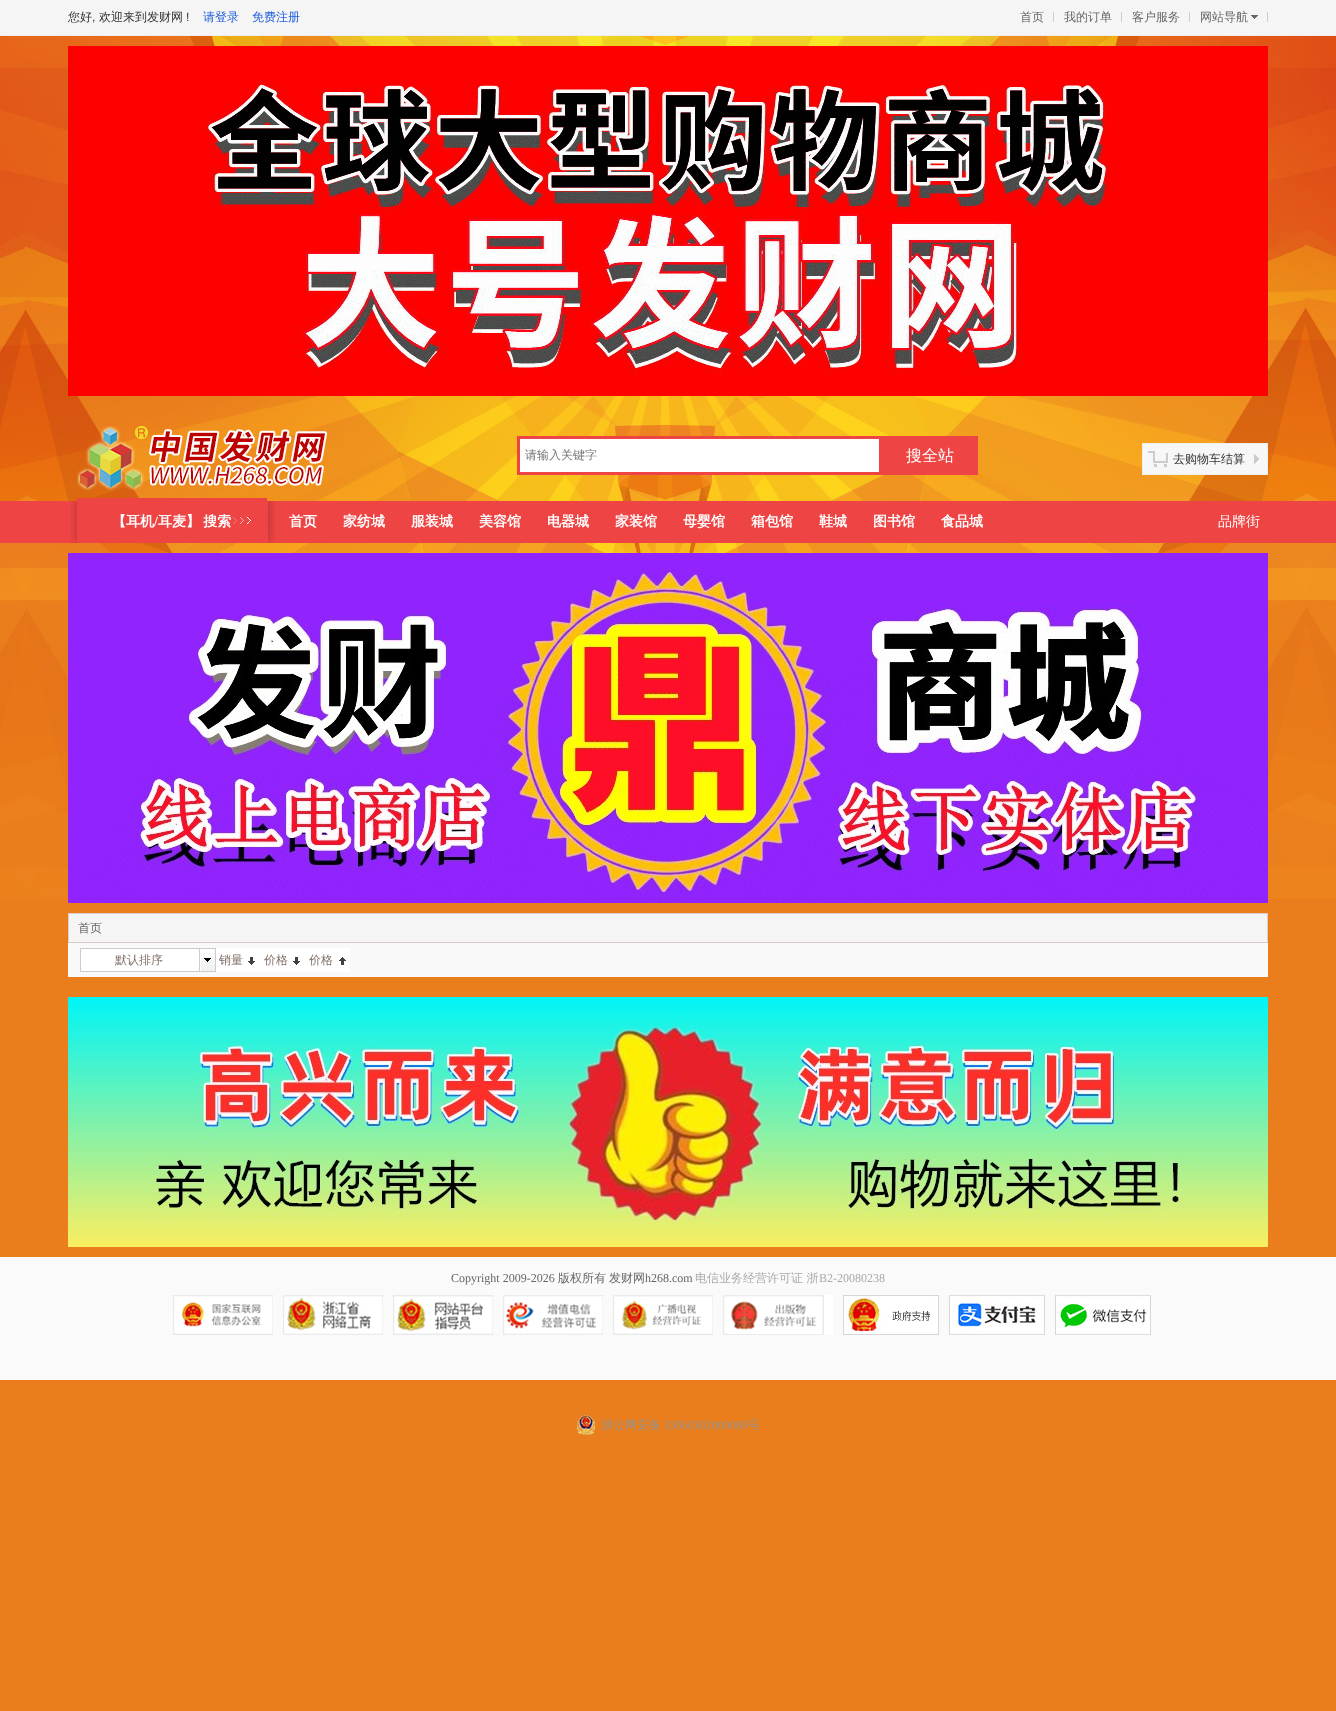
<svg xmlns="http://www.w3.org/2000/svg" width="1336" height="1711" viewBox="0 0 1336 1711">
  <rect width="100%" height="100%" fill="#ea7e1c"/>
  <image x="0" y="36" width="1336" height="863" href="img1.png"/>
  <rect x="0" y="0" width="1336" height="35" fill="#f5f5f5"/>
  <rect x="0" y="35" width="1336" height="1" fill="#eeeeee"/>
  <text x="68" y="21" font-family="WenQuanYi Zen Hei" font-size="12" font-weight="500" fill="#333333">您好</text>
  <text x="92" y="21" font-family="Liberation Sans" font-size="12" fill="#333333">,</text>
  <text x="99" y="21" font-family="WenQuanYi Zen Hei" font-size="12" font-weight="500" fill="#333333">欢迎来到发财网</text>
  <text x="186" y="21" font-family="Liberation Sans" font-size="12" fill="#333333">!</text>
  <text x="203" y="21" font-family="WenQuanYi Zen Hei" font-size="12" font-weight="500" fill="#2561dd">请登录</text>
  <text x="252" y="21" font-family="WenQuanYi Zen Hei" font-size="12" font-weight="500" fill="#2561dd">免费注册</text>
  <rect x="1053" y="12" width="1" height="10" fill="#cccccc"/>
  <text x="1020" y="21" font-family="WenQuanYi Zen Hei" font-size="12" font-weight="500" fill="#666666">首页</text>
  <rect x="1121" y="12" width="1" height="10" fill="#cccccc"/>
  <text x="1064" y="21" font-family="WenQuanYi Zen Hei" font-size="12" font-weight="500" fill="#666666">我的订单</text>
  <rect x="1189" y="12" width="1" height="10" fill="#cccccc"/>
  <text x="1132" y="21" font-family="WenQuanYi Zen Hei" font-size="12" font-weight="500" fill="#666666">客户服务</text>
  <rect x="1267" y="12" width="1" height="10" fill="#cccccc"/>
  <image x="1251" y="15" width="7" height="4" href="img2.png"/>
  <text x="1200" y="21" font-family="WenQuanYi Zen Hei" font-size="12" font-weight="500" fill="#666666">网站导航</text>
  <image x="68" y="46" width="1200" height="350" href="img3.png"/>
  <image x="77" y="426" width="251" height="65" href="img4.png"/>
  <rect x="518.5" y="437.5" width="362" height="36" fill="#ffffff" stroke="#ee4444" stroke-width="3"/>
  <text x="525" y="459" font-family="WenQuanYi Zen Hei" font-size="12" font-weight="500" fill="#757575">请输入关键字</text>
  <rect x="882" y="436" width="96" height="39" fill="#ee4444"/>
  <text x="906" y="461" font-family="WenQuanYi Zen Hei" font-size="16" font-weight="500" fill="#ffffff">搜全站</text>
  <rect x="1142.5" y="443.5" width="125" height="31" fill="#f7f7f7" stroke="#efefef"/>
  <image x="1148" y="451" width="20" height="16" href="img5.png"/>
  <text x="1173" y="463" font-family="WenQuanYi Zen Hei" font-size="12" font-weight="500" fill="#333333">去购物车结算</text>
  <image x="1254" y="454" width="5" height="10" href="img6.png"/>
  <rect x="0" y="501" width="1336" height="42" fill="#ee4444"/>
  <image x="71" y="501" width="204" height="42" href="img7.png"/>
  <rect x="77" y="498" width="190" height="45" fill="#ee4444"/>
  <image x="233" y="517" width="18" height="7" href="img8.png"/>
  <text x="112" y="526" font-family="WenQuanYi Zen Hei" font-size="14" font-weight="bold" fill="#ffffff">【耳机</text>
  <text x="154" y="526" font-family="Liberation Serif" font-size="14" font-weight="bold" fill="#ffffff">/</text>
  <text x="158" y="526" word-spacing="-1" font-family="WenQuanYi Zen Hei" font-size="14" font-weight="bold" fill="#ffffff">耳麦】 搜索</text>
  <text x="289" y="526" font-family="WenQuanYi Zen Hei" font-size="14" font-weight="bold" fill="#ffffff">首页</text>
  <text x="343" y="526" font-family="WenQuanYi Zen Hei" font-size="14" font-weight="bold" fill="#ffffff">家纺城</text>
  <text x="411" y="526" font-family="WenQuanYi Zen Hei" font-size="14" font-weight="bold" fill="#ffffff">服装城</text>
  <text x="479" y="526" font-family="WenQuanYi Zen Hei" font-size="14" font-weight="bold" fill="#ffffff">美容馆</text>
  <text x="547" y="526" font-family="WenQuanYi Zen Hei" font-size="14" font-weight="bold" fill="#ffffff">电器城</text>
  <text x="615" y="526" font-family="WenQuanYi Zen Hei" font-size="14" font-weight="bold" fill="#ffffff">家装馆</text>
  <text x="683" y="526" font-family="WenQuanYi Zen Hei" font-size="14" font-weight="bold" fill="#ffffff">母婴馆</text>
  <text x="751" y="526" font-family="WenQuanYi Zen Hei" font-size="14" font-weight="bold" fill="#ffffff">箱包馆</text>
  <text x="819" y="526" font-family="WenQuanYi Zen Hei" font-size="14" font-weight="bold" fill="#ffffff">鞋城</text>
  <text x="873" y="526" font-family="WenQuanYi Zen Hei" font-size="14" font-weight="bold" fill="#ffffff">图书馆</text>
  <text x="941" y="526" font-family="WenQuanYi Zen Hei" font-size="14" font-weight="bold" fill="#ffffff">食品城</text>
  <text x="1218" y="526" font-family="WenQuanYi Zen Hei" font-size="14" font-weight="500" fill="#ffffff">品牌街</text>
  <image x="68" y="553" width="1200" height="350" href="img9.png"/>
  <rect x="68.5" y="913.5" width="1199" height="29" fill="#f5f5f5" stroke="#dccccc"/>
  <text x="78" y="932" font-family="WenQuanYi Zen Hei" font-size="12" font-weight="500" fill="#666666">首页</text>
  <rect x="68" y="943" width="1200" height="34" fill="#faf9f9"/>
  <image x="80" y="948" width="136" height="24" href="img10.png"/>
  <text x="115" y="964" font-family="WenQuanYi Zen Hei" font-size="12" font-weight="500" fill="#806f66">默认排序</text>
  <rect x="216" y="948" width="134" height="24" fill="#ffffff"/>
  <text x="219" y="964" font-family="WenQuanYi Zen Hei" font-size="12" font-weight="500" fill="#806f66">销量</text>
  <image x="248" y="957" width="7" height="8" href="img11.png"/>
  <text x="264" y="964" font-family="WenQuanYi Zen Hei" font-size="12" font-weight="500" fill="#806f66">价格</text>
  <image x="293" y="957" width="7" height="8" href="img11.png"/>
  <text x="309" y="964" font-family="WenQuanYi Zen Hei" font-size="12" font-weight="500" fill="#806f66">价格</text>
  <image x="339" y="957" width="7" height="8" href="img12.png"/>
  <image x="68" y="997" width="1200" height="250" href="img13.png"/>
  <rect x="0" y="1257" width="1336" height="123" fill="#fafafa"/>
  <text x="451" y="1282" font-family="Liberation Serif" font-size="12" fill="#666666">Copyright 2009-2026</text>
  <text x="558" y="1282" font-family="WenQuanYi Zen Hei" font-size="12" font-weight="500" fill="#666666">版权所有</text>
  <text x="609" y="1282" font-family="WenQuanYi Zen Hei" font-size="12" font-weight="500" fill="#666666">发财网</text>
  <text x="645" y="1282" font-family="Liberation Serif" font-size="12" fill="#666666">h268.com</text>
  <text x="695" y="1282" font-family="WenQuanYi Zen Hei" font-size="12" font-weight="500" fill="#aaaaaa">电信业务经营许可证 浙</text>
  <text x="819" y="1282" font-family="Liberation Serif" font-size="12" fill="#aaaaaa">B2-20080238</text>
  <image x="173" y="1295" width="100" height="40" href="img14.png"/>
  <image x="283" y="1295" width="100" height="40" href="img15.png"/>
  <image x="393" y="1295" width="100" height="40" href="img16.png"/>
  <image x="503" y="1295" width="100" height="40" href="img17.png"/>
  <image x="613" y="1295" width="100" height="40" href="img18.png"/>
  <image x="723" y="1295" width="110" height="40" href="img19.png"/>
  <image x="843" y="1295" width="96" height="40" href="img20.png"/>
  <image x="949" y="1295" width="96" height="40" href="img21.png"/>
  <image x="1055" y="1295" width="96" height="40" href="img22.png"/>
  <image x="576" y="1415" width="20" height="20" href="img23.png"/>
  <text x="601" y="1429" font-family="WenQuanYi Zen Hei" font-size="12" font-weight="500" fill="#939393">浙公网安备</text>
  <text x="664" y="1429" font-family="Liberation Serif" font-size="12" fill="#939393">33060302000080</text>
  <text x="748" y="1429" font-family="WenQuanYi Zen Hei" font-size="12" font-weight="500" fill="#939393">号</text>
</svg>
